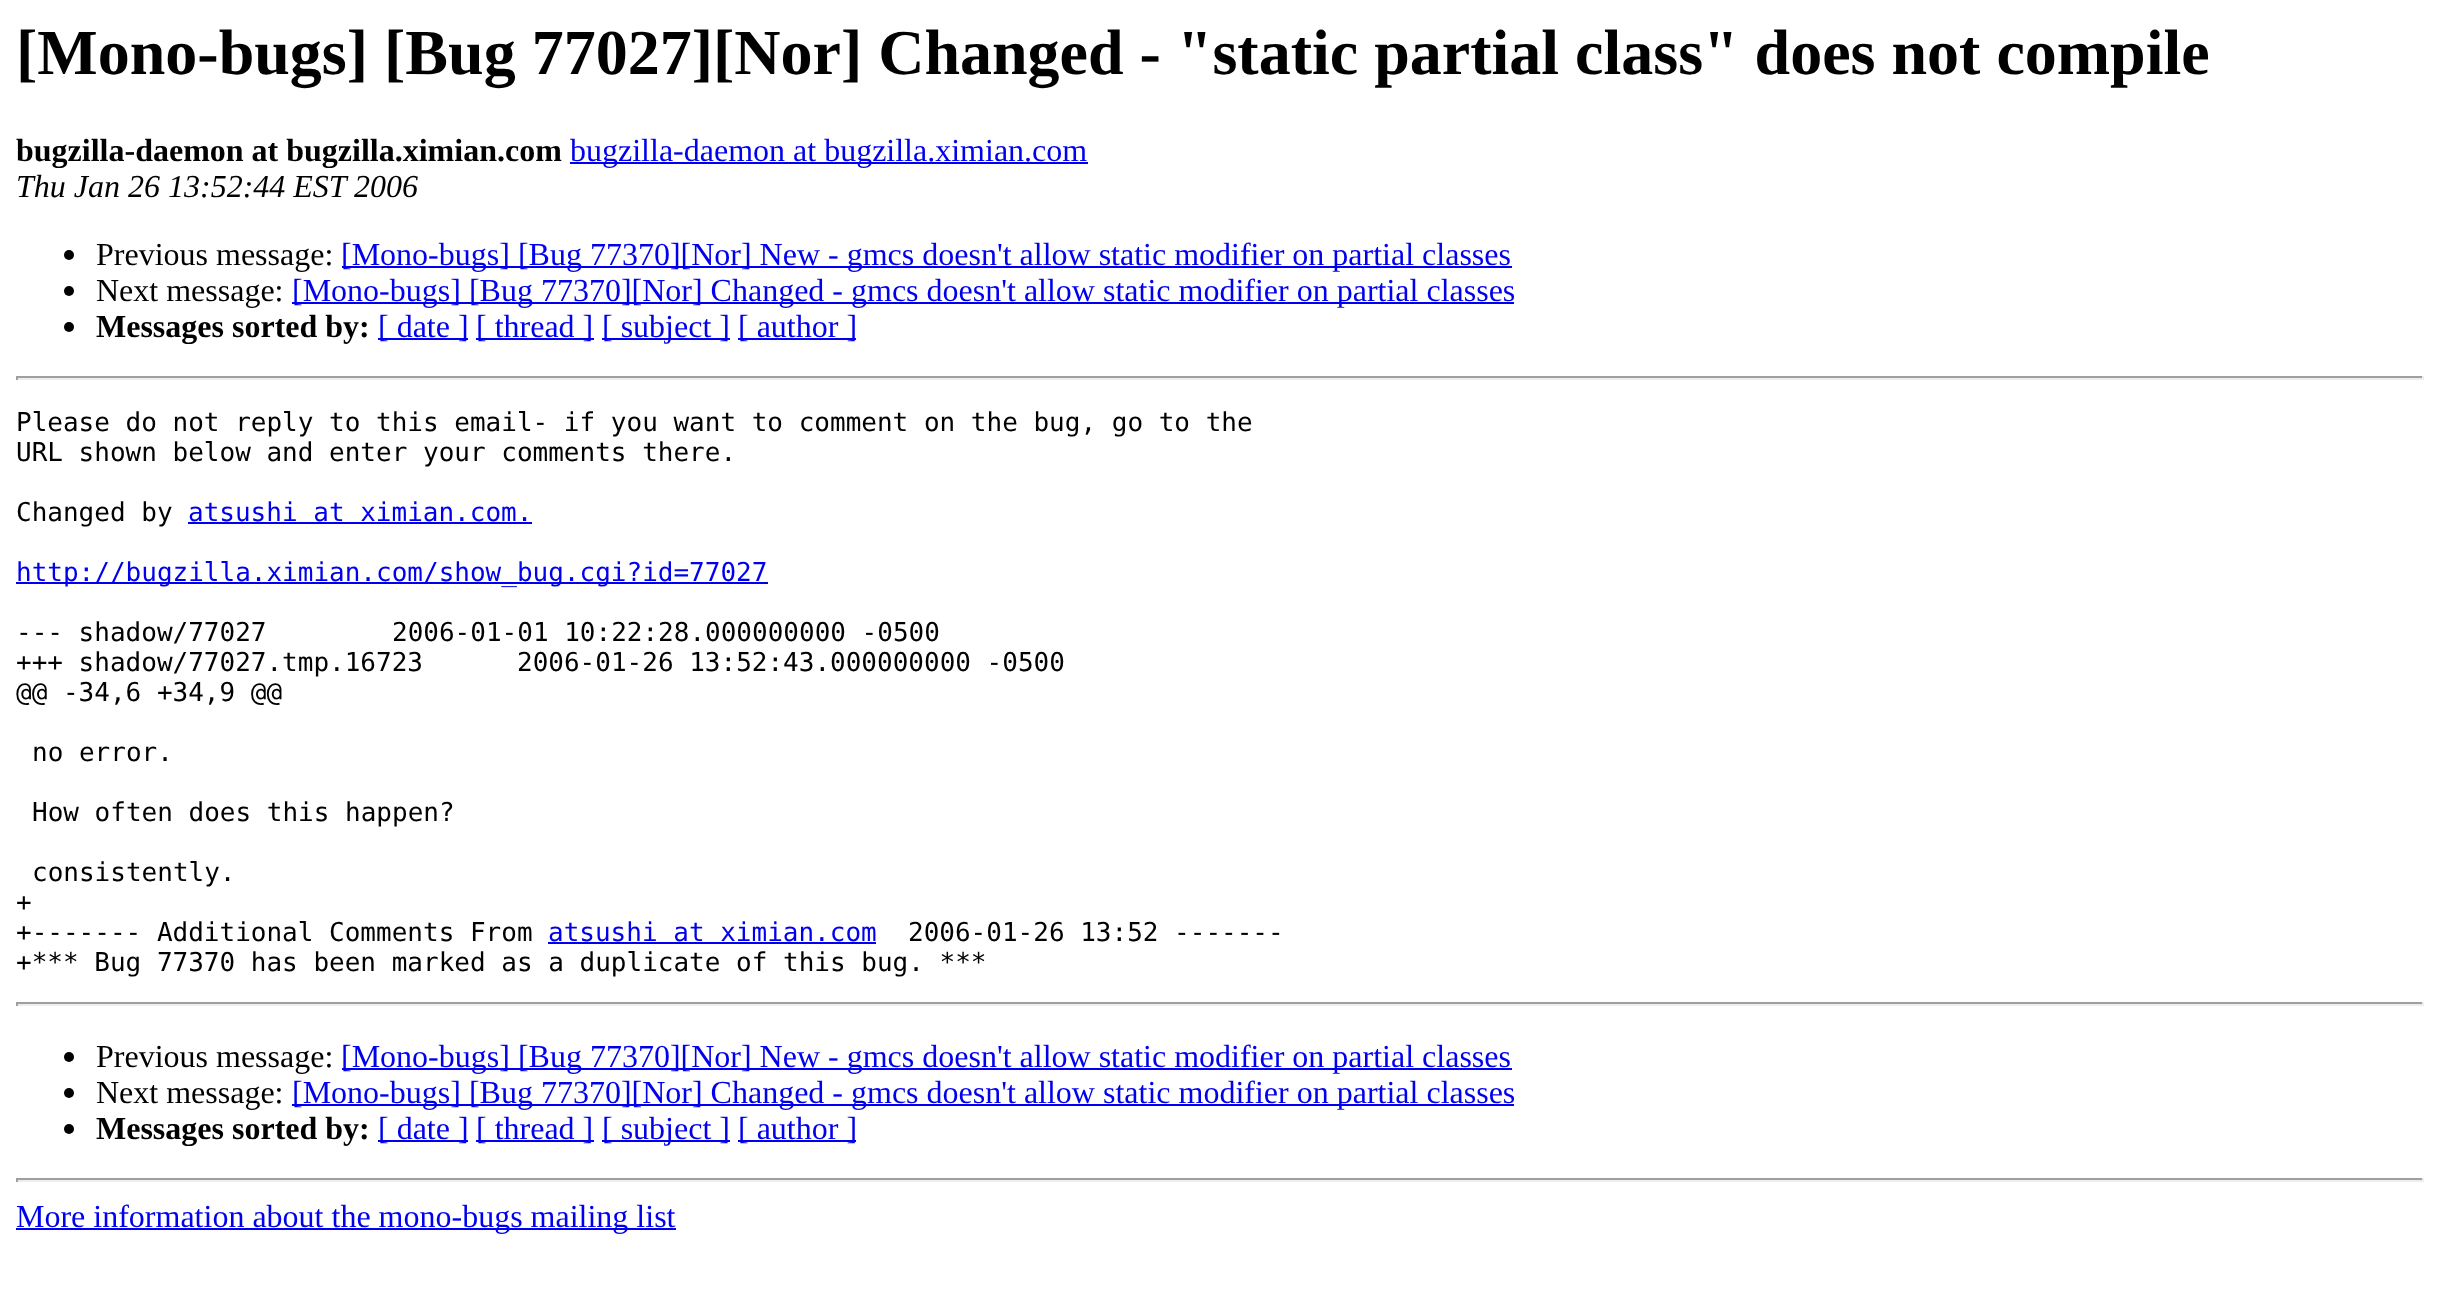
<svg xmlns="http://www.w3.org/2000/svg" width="2440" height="1310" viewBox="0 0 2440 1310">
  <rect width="100%" height="100%" fill="#ffffff"/>
  <text x="16" y="74" font-family="Liberation Serif" font-size="64" font-weight="bold" fill="#000000">[Mono-bugs] [Bug 77027][Nor] Changed - "static partial class" does not compile</text>
  <text x="16" y="161" font-family="Liberation Serif" font-size="32" font-weight="bold" fill="#000000">bugzilla-daemon at bugzilla.ximian.com</text>
  <rect x="570" y="162" width="518" height="2" fill="#0000ee"/>
  <text x="570" y="161" font-family="Liberation Serif" font-size="32" fill="#0000ee">bugzilla-daemon at bugzilla.ximian.com</text>
  <text x="16" y="197" font-family="Liberation Serif" font-size="32" font-style="italic" fill="#000000">Thu Jan 26 13:52:44 EST 2006</text>
  <circle cx="69" cy="255" r="5" fill="#000000"/>
  <text x="96" y="265" font-family="Liberation Serif" font-size="32" fill="#000000">Previous message:</text>
  <rect x="342" y="266" width="1170" height="2" fill="#0000ee"/>
  <text x="341" y="265" font-family="Liberation Serif" font-size="32" fill="#0000ee">[Mono-bugs] [Bug 77370][Nor] New - gmcs doesn't allow static modifier on partial classes</text>
  <circle cx="69" cy="291" r="5" fill="#000000"/>
  <text x="96" y="301" font-family="Liberation Serif" font-size="32" fill="#000000">Next message:</text>
  <rect x="292" y="302" width="1222" height="2" fill="#0000ee"/>
  <text x="292" y="301" font-family="Liberation Serif" font-size="32" fill="#0000ee">[Mono-bugs] [Bug 77370][Nor] Changed - gmcs doesn't allow static modifier on partial classes</text>
  <circle cx="69" cy="327" r="5" fill="#000000"/>
  <text x="96" y="337" font-family="Liberation Serif" font-size="32" font-weight="bold" fill="#000000">Messages sorted by:</text>
  <rect x="378" y="338" width="90" height="2" fill="#0000ee"/>
  <text x="378" y="337" font-family="Liberation Serif" font-size="32" fill="#0000ee">[ date ]</text>
  <rect x="476" y="338" width="118" height="2" fill="#0000ee"/>
  <text x="476" y="337" font-family="Liberation Serif" font-size="32" fill="#0000ee">[ thread ]</text>
  <rect x="602" y="338" width="128" height="2" fill="#0000ee"/>
  <text x="602" y="337" font-family="Liberation Serif" font-size="32" fill="#0000ee">[ subject ]</text>
  <rect x="738" y="338" width="118" height="2" fill="#0000ee"/>
  <text x="738" y="337" font-family="Liberation Serif" font-size="32" fill="#0000ee">[ author ]</text>
  <rect x="16" y="376" width="2408" height="2" fill="#9f9f9f"/>
  <rect x="2422" y="376" width="2" height="4" fill="#eeeeee"/>
  <rect x="16" y="378" width="2408" height="2" fill="#eeeeee"/>
  <rect x="16" y="376" width="2" height="4" fill="#9f9f9f"/>
  <text x="16" y="431" font-family="DejaVu Sans Mono" font-size="26" fill="#000000">Please do not reply to this email- if you want to comment on the bug, go to the</text>
  <text x="16" y="461" font-family="DejaVu Sans Mono" font-size="26" fill="#000000">URL shown below and enter your comments there.</text>
  <text x="16" y="521" font-family="DejaVu Sans Mono" font-size="26" fill="#000000">Changed by</text>
  <text x="188" y="521" font-family="DejaVu Sans Mono" font-size="26" fill="#0000ee">atsushi at ximian.com.</text>
  <rect x="188" y="522" width="344" height="2" fill="#0000ee"/>
  <rect x="16" y="582" width="752" height="2" fill="#0000ee"/>
  <text x="16" y="581" font-family="DejaVu Sans Mono" font-size="26" fill="#0000ee">http://bugzilla.ximian.com/show_bug.cgi?id=77027</text>
  <text x="16" y="641" font-family="DejaVu Sans Mono" font-size="26" fill="#000000">--- shadow/77027</text>
  <text x="392" y="641" font-family="DejaVu Sans Mono" font-size="26" fill="#000000">2006-01-01 10:22:28.000000000 -0500</text>
  <text x="16" y="671" font-family="DejaVu Sans Mono" font-size="26" fill="#000000">+++ shadow/77027.tmp.16723</text>
  <text x="517" y="671" font-family="DejaVu Sans Mono" font-size="26" fill="#000000">2006-01-26 13:52:43.000000000 -0500</text>
  <text x="16" y="701" font-family="DejaVu Sans Mono" font-size="26" fill="#000000">@@ -34,6 +34,9 @@</text>
  <text x="32" y="761" font-family="DejaVu Sans Mono" font-size="26" fill="#000000">no error.</text>
  <text x="32" y="821" font-family="DejaVu Sans Mono" font-size="26" fill="#000000">How often does this happen?</text>
  <text x="32" y="881" font-family="DejaVu Sans Mono" font-size="26" fill="#000000">consistently.</text>
  <text x="16" y="911" font-family="DejaVu Sans Mono" font-size="26" fill="#000000">+</text>
  <text x="16" y="941" font-family="DejaVu Sans Mono" font-size="26" fill="#000000">+------- Additional Comments From</text>
  <text x="548" y="941" font-family="DejaVu Sans Mono" font-size="26" fill="#0000ee">atsushi at ximian.com</text>
  <rect x="548" y="942" width="328" height="2" fill="#0000ee"/>
  <text x="908" y="941" font-family="DejaVu Sans Mono" font-size="26" fill="#000000">2006-01-26 13:52 -------</text>
  <text x="16" y="971" font-family="DejaVu Sans Mono" font-size="26" fill="#000000">+*** Bug 77370 has been marked as a duplicate of this bug. ***</text>
  <rect x="16" y="1002" width="2408" height="2" fill="#9f9f9f"/>
  <rect x="2422" y="1002" width="2" height="4" fill="#eeeeee"/>
  <rect x="16" y="1004" width="2408" height="2" fill="#eeeeee"/>
  <rect x="16" y="1002" width="2" height="4" fill="#9f9f9f"/>
  <circle cx="69" cy="1057" r="5" fill="#000000"/>
  <text x="96" y="1067" font-family="Liberation Serif" font-size="32" fill="#000000">Previous message:</text>
  <rect x="342" y="1068" width="1170" height="2" fill="#0000ee"/>
  <text x="341" y="1067" font-family="Liberation Serif" font-size="32" fill="#0000ee">[Mono-bugs] [Bug 77370][Nor] New - gmcs doesn't allow static modifier on partial classes</text>
  <circle cx="69" cy="1093" r="5" fill="#000000"/>
  <text x="96" y="1103" font-family="Liberation Serif" font-size="32" fill="#000000">Next message:</text>
  <rect x="292" y="1104" width="1222" height="2" fill="#0000ee"/>
  <text x="292" y="1103" font-family="Liberation Serif" font-size="32" fill="#0000ee">[Mono-bugs] [Bug 77370][Nor] Changed - gmcs doesn't allow static modifier on partial classes</text>
  <circle cx="69" cy="1129" r="5" fill="#000000"/>
  <text x="96" y="1139" font-family="Liberation Serif" font-size="32" font-weight="bold" fill="#000000">Messages sorted by:</text>
  <rect x="378" y="1140" width="90" height="2" fill="#0000ee"/>
  <text x="378" y="1139" font-family="Liberation Serif" font-size="32" fill="#0000ee">[ date ]</text>
  <rect x="476" y="1140" width="118" height="2" fill="#0000ee"/>
  <text x="476" y="1139" font-family="Liberation Serif" font-size="32" fill="#0000ee">[ thread ]</text>
  <rect x="602" y="1140" width="128" height="2" fill="#0000ee"/>
  <text x="602" y="1139" font-family="Liberation Serif" font-size="32" fill="#0000ee">[ subject ]</text>
  <rect x="738" y="1140" width="118" height="2" fill="#0000ee"/>
  <text x="738" y="1139" font-family="Liberation Serif" font-size="32" fill="#0000ee">[ author ]</text>
  <rect x="16" y="1178" width="2408" height="2" fill="#9f9f9f"/>
  <rect x="2422" y="1178" width="2" height="4" fill="#eeeeee"/>
  <rect x="16" y="1180" width="2408" height="2" fill="#eeeeee"/>
  <rect x="16" y="1178" width="2" height="4" fill="#9f9f9f"/>
  <rect x="16" y="1228" width="660" height="2" fill="#0000ee"/>
  <text x="16" y="1227" font-family="Liberation Serif" font-size="32" fill="#0000ee">More information about the mono-bugs mailing list</text>
</svg>
